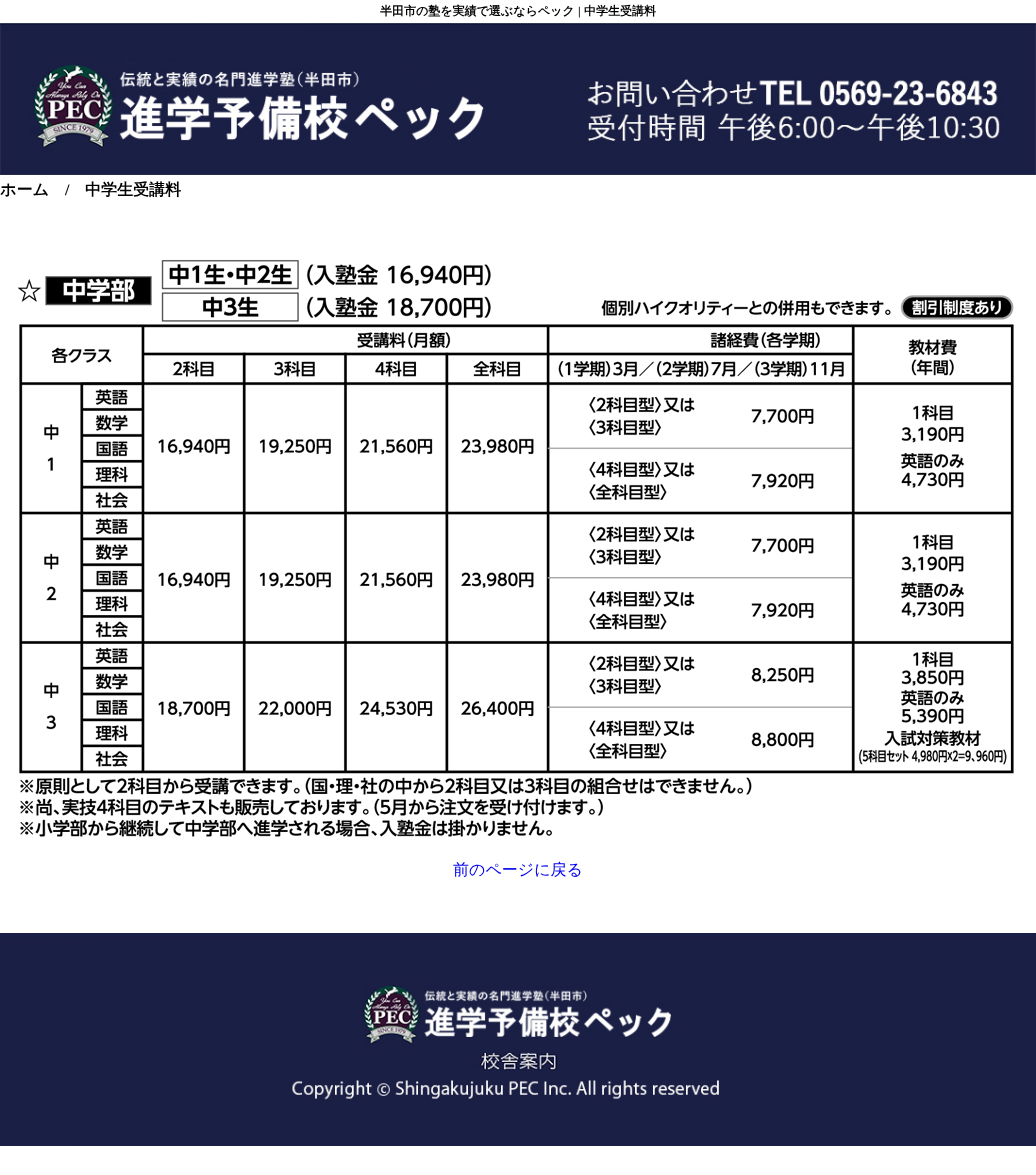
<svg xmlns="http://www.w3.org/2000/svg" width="1036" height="1175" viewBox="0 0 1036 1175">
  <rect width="100%" height="100%" fill="#ffffff"/>
  <text x="380" y="15" font-family="WenQuanYi Zen Hei" font-size="12" font-weight="bold" fill="#000000">半田市の塾を実績で選ぶならペック</text>
  <text x="578" y="15" font-family="Liberation Serif" font-size="12" font-weight="bold" fill="#000000">|</text>
  <text x="584" y="15" font-family="WenQuanYi Zen Hei" font-size="12" font-weight="bold" fill="#000000">中学生受講料</text>
  <image x="0" y="23" width="1036" height="152" href="img1.png"/>
  <text x="0" y="195" font-family="WenQuanYi Zen Hei" font-size="16" font-weight="bold" fill="#000000">ホーム</text>
  <text x="65" y="195" font-family="Liberation Serif" font-size="16" font-weight="bold" fill="#000000">/</text>
  <text x="85" y="195" font-family="WenQuanYi Zen Hei" font-size="16" font-weight="bold" fill="#000000">中学生受講料</text>
  <image x="18" y="259" width="996" height="578" href="img2.png"/>
  <text x="453" y="875" font-family="WenQuanYi Zen Hei" font-size="16" font-weight="500" fill="#0000ee">前のページに戻る</text>
  <image x="0" y="933" width="1036" height="120" href="img3.png"/>
  <image x="0" y="1053" width="1036" height="18" href="img4.png"/>
  <image x="0" y="1071" width="1036" height="75" href="img5.png"/>
</svg>
